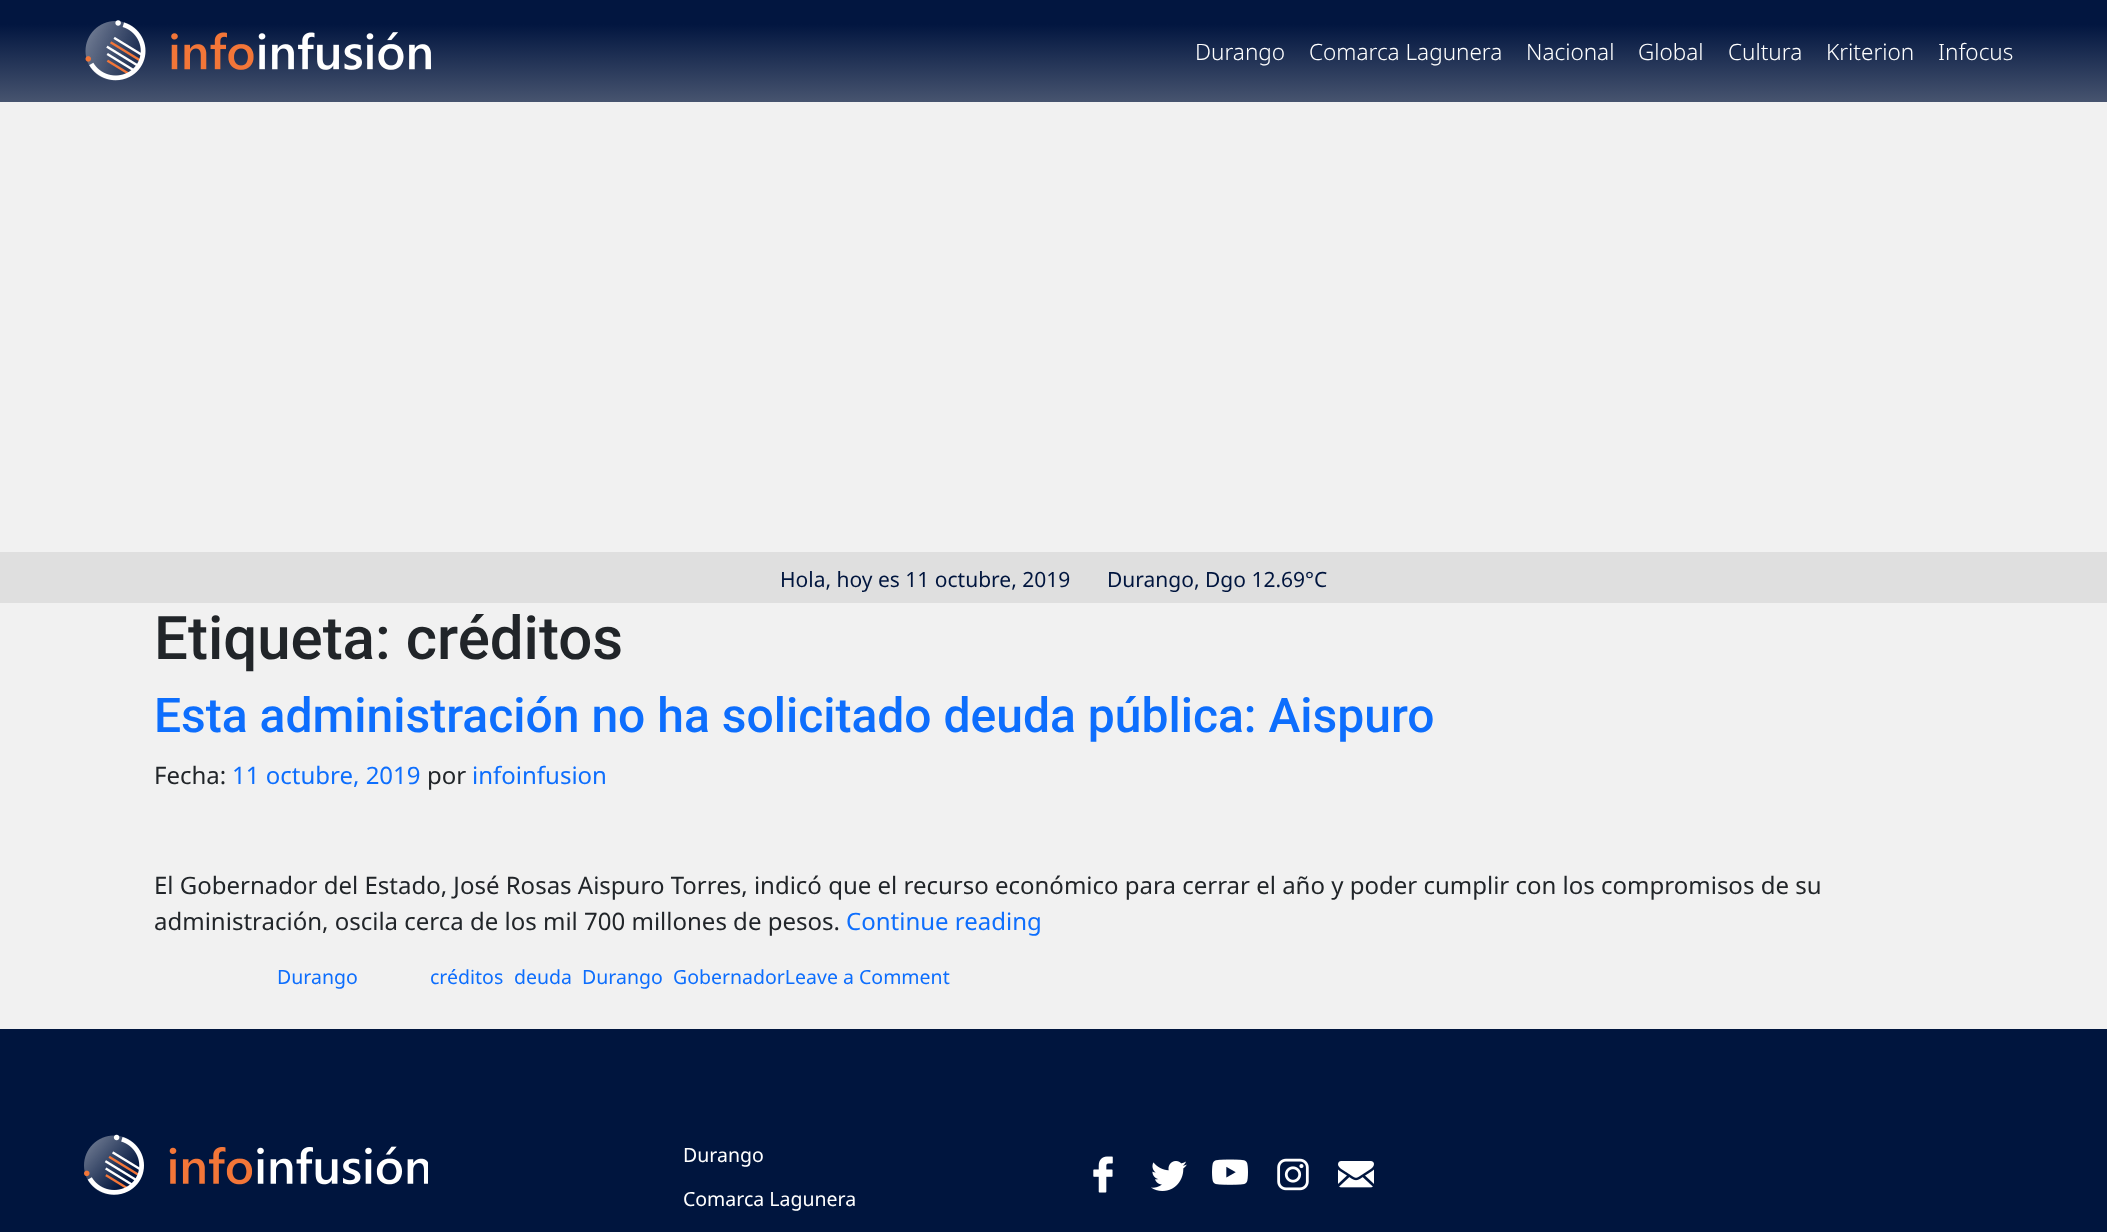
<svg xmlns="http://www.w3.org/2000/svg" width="2107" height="1232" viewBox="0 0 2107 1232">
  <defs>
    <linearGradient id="g1" gradientUnits="userSpaceOnUse" x1="1054" y1="0" x2="1054" y2="102"><stop offset="0.24" stop-color="#021640"/><stop offset="1" stop-color="#47546f"/></linearGradient>
  </defs>
  <rect width="100%" height="100%" fill="#f1f1f1"/>
  <rect x="0" y="0" width="2107" height="102" fill="url(#g1)"/>
  <image x="85" y="20" width="346" height="61" href="img1.png"/>
  <text x="1195" y="60" font-family="Noto Sans" font-size="22.5" font-weight="300" fill="#ffffff">Durango</text>
  <text x="1309" y="60" font-family="Noto Sans" font-size="22.5" font-weight="300" fill="#ffffff">Comarca Lagunera</text>
  <text x="1526" y="60" font-family="Noto Sans" font-size="22.5" font-weight="300" fill="#ffffff">Nacional</text>
  <text x="1638" y="60" font-family="Noto Sans" font-size="22.5" font-weight="300" fill="#ffffff">Global</text>
  <text x="1728" y="60" font-family="Noto Sans" font-size="22.5" font-weight="300" fill="#ffffff">Cultura</text>
  <text x="1826" y="60" font-family="Noto Sans" font-size="22.5" font-weight="300" fill="#ffffff">Kriterion</text>
  <text x="1938" y="60" font-family="Noto Sans" font-size="22.5" font-weight="300" fill="#ffffff">Infocus</text>
  <rect x="0" y="552" width="2107" height="51" fill="#dfdfdf"/>
  <text x="780" y="587" font-family="Noto Sans" font-size="21" fill="#00153e">Hola, hoy es 11 octubre, 2019</text>
  <text x="1107" y="587" font-family="Noto Sans" font-size="21" fill="#00153e">Durango, Dgo 12.69°C</text>
  <text x="154" y="659" font-family="Roboto" font-size="60" font-weight="500" fill="#212529">Etiqueta: créditos</text>
  <text x="154" y="732" font-family="Roboto" font-size="48" font-weight="500" fill="#0d6efd">Esta administración no ha solicitado deuda pública: Aispuro</text>
  <text x="154" y="784" font-family="Noto Sans" font-size="24" fill="#212529">Fecha:</text>
  <text x="232" y="784" font-family="Noto Sans" font-size="24" fill="#0d6efd">11 octubre, 2019</text>
  <text x="427" y="784" font-family="Noto Sans" font-size="24" fill="#212529">por</text>
  <text x="472" y="784" font-family="Noto Sans" font-size="24" fill="#0d6efd">infoinfusion</text>
  <text x="154" y="894" font-family="Noto Sans" font-size="24" fill="#212529">El Gobernador del Estado, José Rosas Aispuro Torres, indicó que el recurso económico para cerrar el año y poder cumplir con los compromisos de su</text>
  <text x="154" y="930" font-family="Noto Sans" font-size="24" fill="#212529">administración, oscila cerca de los mil 700 millones de pesos.</text>
  <text x="846" y="930" font-family="Noto Sans" font-size="24" fill="#0d6efd">Continue reading</text>
  <text x="277" y="984" font-family="Noto Sans" font-size="19.5" fill="#0d6efd">Durango</text>
  <text x="430" y="984" font-family="Noto Sans" font-size="19.5" fill="#0d6efd">créditos</text>
  <text x="514" y="984" font-family="Noto Sans" font-size="19.5" fill="#0d6efd">deuda</text>
  <text x="582" y="984" font-family="Noto Sans" font-size="19.5" fill="#0d6efd">Durango</text>
  <text x="673" y="984" font-family="Noto Sans" font-size="19.5" fill="#0d6efd">GobernadorLeave a Comment</text>
  <rect x="0" y="1029" width="2107" height="203" fill="#00153e"/>
  <image x="84" y="1134" width="344" height="61" href="img2.png"/>
  <text x="683" y="1162" font-family="Noto Sans" font-size="19.5" fill="#ffffff">Durango</text>
  <text x="683" y="1206" font-family="Noto Sans" font-size="19.5" fill="#ffffff">Comarca Lagunera</text>
  <image x="1093" y="1156" width="20" height="37" href="img3.png"/>
  <image x="1151" y="1161" width="36" height="30" href="img4.png"/>
  <image x="1212" y="1159" width="36" height="26" href="img5.png"/>
  <image x="1277" y="1158" width="32" height="33" href="img6.png"/>
  <image x="1338" y="1161" width="36" height="27" href="img7.png"/>
</svg>
